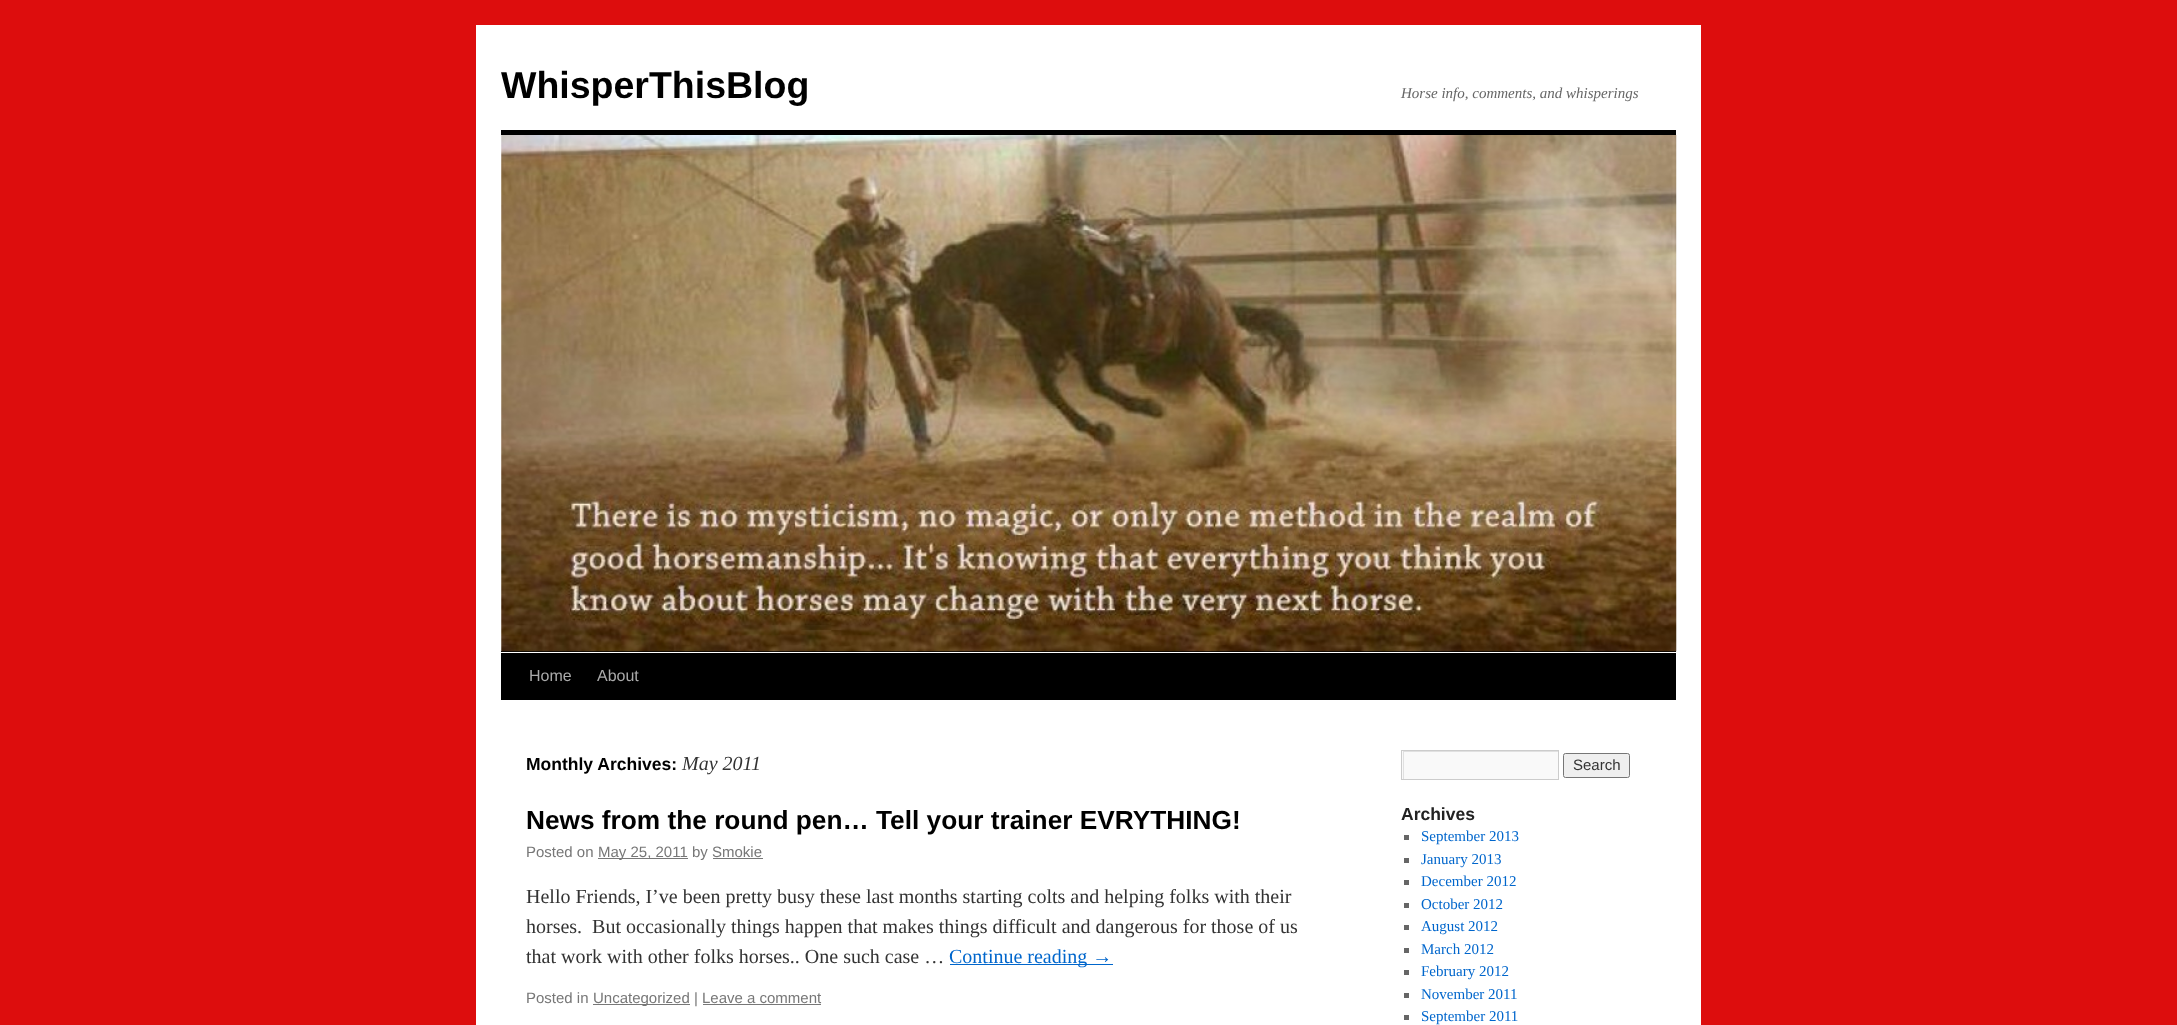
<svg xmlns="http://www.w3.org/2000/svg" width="2177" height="1025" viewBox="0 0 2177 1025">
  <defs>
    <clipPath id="clip1"><rect x="1403" y="751" width="155" height="28"/></clipPath>
  </defs>
  <rect width="100%" height="100%" fill="#dd0d0d"/>
  <rect x="476" y="25" width="1225" height="1000" fill="#ffffff"/>
  <text x="501" y="98" font-family="Liberation Sans" font-size="37.5" font-weight="bold" fill="#000000">WhisperThisBlog</text>
  <text x="1401" y="98" font-family="Liberation Serif" font-size="15" font-style="italic" fill="#666666">Horse info, comments, and whisperings</text>
  <rect x="501" y="130" width="1175" height="5" fill="#000000"/>
  <rect x="501" y="651" width="1175" height="1" fill="#000000"/>
  <image x="501" y="135" width="1176" height="517" href="img1.png"/>
  <rect x="501" y="653" width="1175" height="47" fill="#000000"/>
  <text x="529" y="681" font-family="Liberation Sans" font-size="16" fill="#aaaaaa">Home</text>
  <text x="597" y="681" font-family="Liberation Sans" font-size="16" fill="#aaaaaa">About</text>
  <text x="526" y="770" font-family="Liberation Sans" font-size="17.5" font-weight="bold" fill="#000000">Monthly Archives:</text>
  <text x="682" y="770" font-family="Liberation Serif" font-size="20" font-style="italic" fill="#333333">May 2011</text>
  <text x="526" y="829" font-family="Liberation Sans" font-size="26.25" font-weight="bold" fill="#000000">News from the round pen… Tell your trainer EVRYTHING!</text>
  <text x="526" y="857" font-family="Liberation Sans" font-size="15" fill="#777777">Posted on</text>
  <rect x="598" y="858" width="90" height="1" fill="#777777"/>
  <text x="598" y="857" font-family="Liberation Sans" font-size="15" fill="#777777">May 25, 2011 by Smokie</text>
  <rect x="713" y="858" width="50" height="1" fill="#777777"/>
  <text x="526" y="903" font-family="Liberation Serif" font-size="20" fill="#333333">Hello Friends, I’ve been pretty busy these last months starting colts and helping folks with their</text>
  <text x="526" y="933" font-family="Liberation Serif" font-size="20" fill="#333333" xml:space="preserve">horses.  But occasionally things happen that makes things difficult and dangerous for those of us</text>
  <text x="526" y="963" font-family="Liberation Serif" font-size="20" fill="#333333">that work with other folks horses.. One such case …</text>
  <rect x="950" y="964" width="163" height="1" fill="#0066cc"/>
  <text x="949" y="963" font-family="Liberation Serif" font-size="20" fill="#0066cc">Continue reading →</text>
  <text x="526" y="1003" font-family="Liberation Sans" font-size="15" fill="#777777">Posted in</text>
  <rect x="593" y="1004" width="97" height="1" fill="#777777"/>
  <text x="593" y="1003" font-family="Liberation Sans" font-size="15" fill="#777777">Uncategorized | Leave a comment</text>
  <rect x="703" y="1004" width="118" height="1" fill="#777777"/>
  <rect x="1402" y="751" width="156" height="28" fill="#f9f9f9"/>
  <g clip-path="url(#clip1)">
    <path d="M1279 628H1681V902H1279ZM1404 752H1559V780H1404Z" fill="#e0e0e0" fill-rule="evenodd"/>
  </g>
  <rect x="1401.5" y="750.5" width="157" height="29" fill="none" stroke="#cccccc"/>
  <rect x="1563.5" y="753.5" width="66" height="24" rx="2" fill="#efefef" stroke="#767676"/>
  <text x="1573" y="770" font-family="Liberation Sans" font-size="15" fill="#333333">Search</text>
  <text x="1401" y="820" font-family="Liberation Sans" font-size="17.5" font-weight="bold" fill="#222222">Archives</text>
  <rect x="1404" y="835" width="5" height="5" fill="#666666"/>
  <text x="1421" y="841" font-family="Liberation Serif" font-size="15" fill="#0066cc">September 2013</text>
  <rect x="1404" y="858" width="5" height="5" fill="#666666"/>
  <text x="1421" y="864" font-family="Liberation Serif" font-size="15" fill="#0066cc">January 2013</text>
  <rect x="1404" y="880" width="5" height="5" fill="#666666"/>
  <text x="1421" y="886" font-family="Liberation Serif" font-size="15" fill="#0066cc">December 2012</text>
  <rect x="1404" y="903" width="5" height="5" fill="#666666"/>
  <text x="1421" y="909" font-family="Liberation Serif" font-size="15" fill="#0066cc">October 2012</text>
  <rect x="1404" y="925" width="5" height="5" fill="#666666"/>
  <text x="1421" y="931" font-family="Liberation Serif" font-size="15" fill="#0066cc">August 2012</text>
  <rect x="1404" y="948" width="5" height="5" fill="#666666"/>
  <text x="1421" y="954" font-family="Liberation Serif" font-size="15" fill="#0066cc">March 2012</text>
  <rect x="1404" y="970" width="5" height="5" fill="#666666"/>
  <text x="1421" y="976" font-family="Liberation Serif" font-size="15" fill="#0066cc">February 2012</text>
  <rect x="1404" y="993" width="5" height="5" fill="#666666"/>
  <text x="1421" y="999" font-family="Liberation Serif" font-size="15" fill="#0066cc">November 2011</text>
  <rect x="1404" y="1015" width="5" height="5" fill="#666666"/>
  <text x="1421" y="1021" font-family="Liberation Serif" font-size="15" fill="#0066cc">September 2011</text>
</svg>
